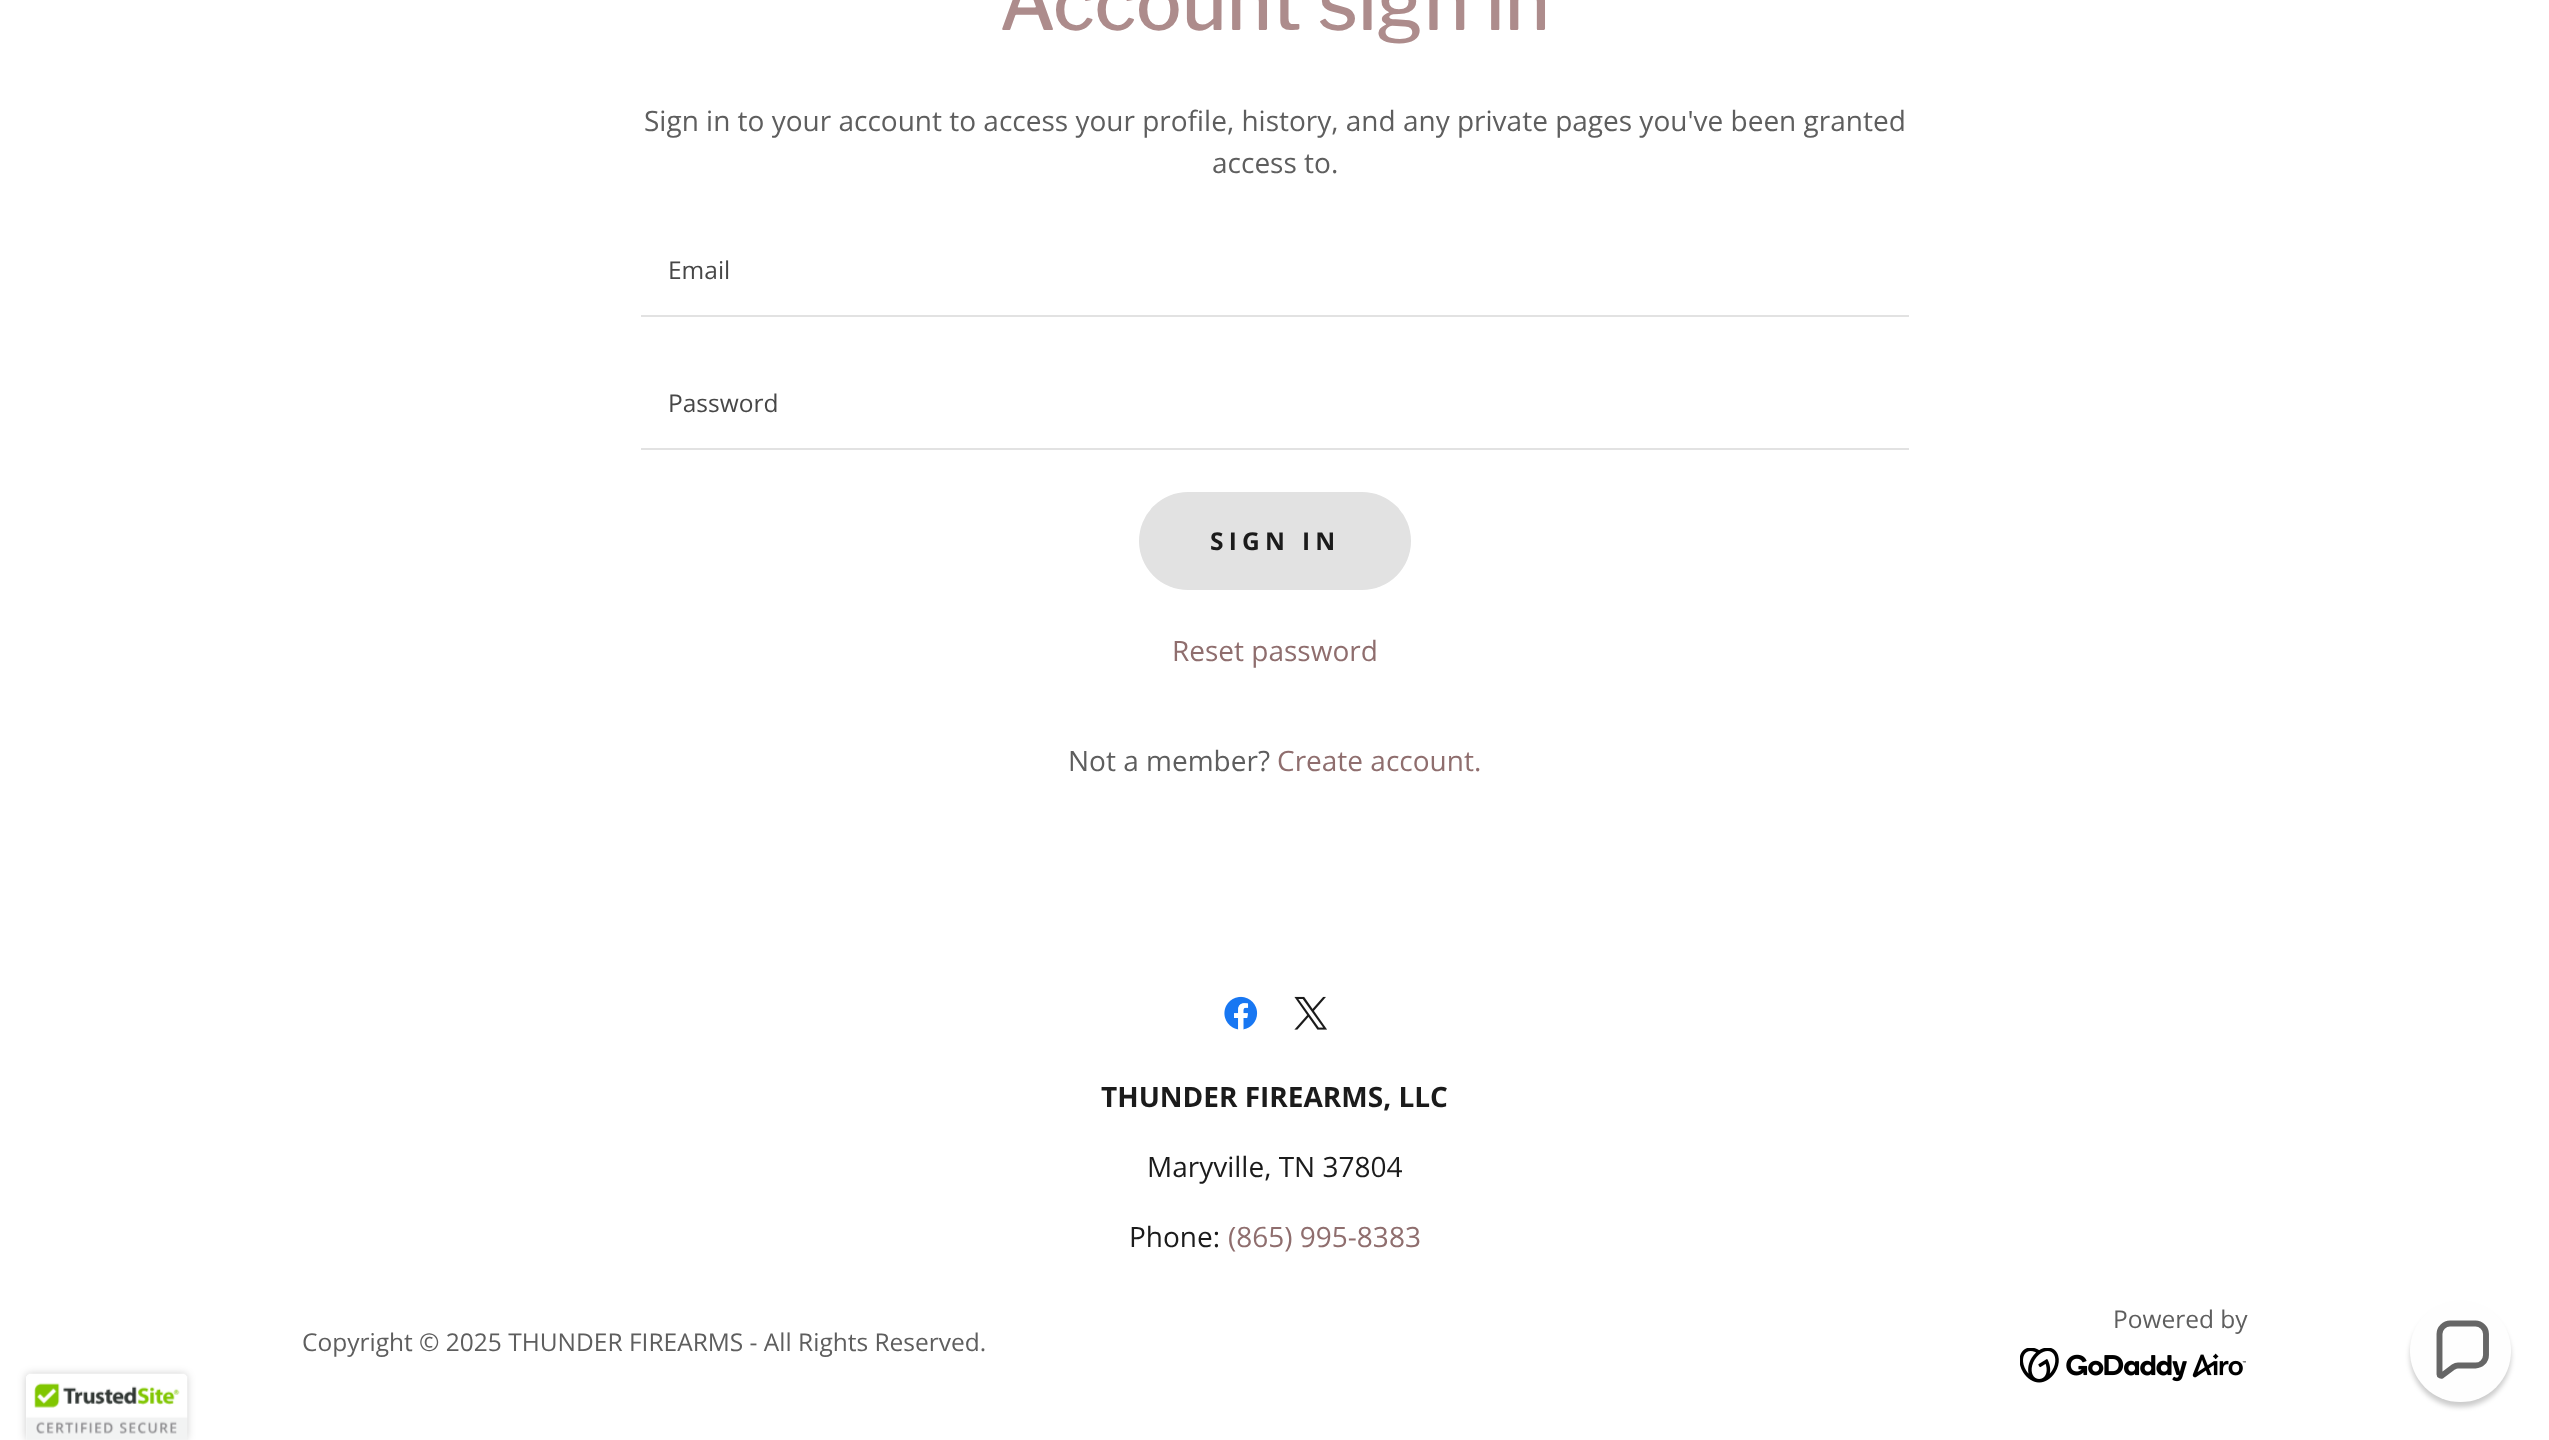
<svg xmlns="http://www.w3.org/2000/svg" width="2549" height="1440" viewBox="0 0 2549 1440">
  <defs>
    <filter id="blur1" x="-50%" y="-200%" width="200%" height="500%"><feGaussianBlur stdDeviation="4.5"/></filter>
    <filter id="blur2" x="-50%" y="-200%" width="200%" height="500%"><feGaussianBlur stdDeviation="2.5"/></filter>
  </defs>
  <rect width="100%" height="100%" fill="#ffffff"/>
  <rect x="26" y="1374" width="161" height="66" rx="4" fill="#000000" fill-opacity="0.2" filter="url(#blur1)"/>
  <path d="M30 1374H183C185 1374 187 1376 187 1378V1440H26V1378C26 1376 28 1374 30 1374Z" fill="#ffffff"/>
  <image x="26" y="1373" width="162" height="67" href="img1.png"/>
  <text x="999" y="30" font-family="Libre Franklin" font-size="77" font-weight="100" fill="#ad8c8c">Account sign in</text>
  <text x="644" y="131" font-family="Open Sans" font-size="28" fill="#5e5e5e">Sign in to your account to access your profile, history, and any private pages you've been granted</text>
  <text x="1212" y="173" font-family="Open Sans" font-size="28" fill="#5e5e5e">access to.</text>
  <rect x="641" y="315" width="1268" height="2" fill="#e2e2e2"/>
  <text x="668" y="279" font-family="Open Sans" font-size="24.5" fill="#474747">Email</text>
  <rect x="641" y="448" width="1268" height="2" fill="#e2e2e2"/>
  <text x="668" y="412" font-family="Open Sans" font-size="24.5" fill="#474747">Password</text>
  <rect x="1139" y="492" width="272" height="98" rx="49" fill="#e2e2e2"/>
  <text x="1210" y="550" font-family="Open Sans" font-size="24.5" font-weight="bold" letter-spacing="5.25" fill="#1b1b1b">SIGN IN</text>
  <text x="1172" y="661" font-family="Open Sans" font-size="28" fill="#8f6e6e">Reset password</text>
  <text x="1068" y="771" font-family="Open Sans" font-size="28" fill="#5e5e5e">Not a member?</text>
  <text x="1277" y="771" font-family="Open Sans" font-size="28" fill="#8f6e6e">Create account.</text>
  <image x="1224" y="996" width="34" height="34" href="img2.png"/>
  <image x="1294" y="996" width="33" height="34" href="img3.png"/>
  <text x="1101" y="1107" font-family="Open Sans" font-size="28" font-weight="bold" fill="#1b1b1b">THUNDER FIREARMS, LLC</text>
  <text x="1147" y="1177" font-family="Open Sans" font-size="28" fill="#1b1b1b">Maryville, TN 37804</text>
  <text x="1129" y="1247" font-family="Open Sans" font-size="28" fill="#1b1b1b">Phone:</text>
  <text x="1228" y="1247" font-family="Open Sans" font-size="28" fill="#8f6e6e">(865) 995-8383</text>
  <text x="2113" y="1328" font-family="Open Sans" font-size="24.5" fill="#5e5e5e">Powered by</text>
  <image x="2020" y="1348" width="226" height="35" href="img4.png"/>
  <text x="302" y="1351" font-family="Open Sans" font-size="24.5" fill="#5e5e5e">Copyright © 2025 THUNDER FIREARMS - All Rights Reserved.</text>
  <rect x="2410" y="1306" width="101" height="101" rx="50.5" fill="#0d0d0d" fill-opacity="0.2" filter="url(#blur2)"/>
  <rect x="2410" y="1300" width="101" height="102" rx="50.5" fill="#fefefe"/>
  <path d="M2475.5 1323.5H2450C2444.5 1323.5 2439.5 1328.5 2439.5 1334V1374.5C2439.5 1375.5 2441 1376 2442 1375.5L2453.5 1367C2455 1366 2456.5 1365.5 2458 1365.5H2475.5C2481 1365.5 2486 1361 2486 1355V1334C2486 1328.5 2481 1323.5 2475.5 1323.5Z" fill="none" stroke="#666666" stroke-width="5.9"/>
</svg>
